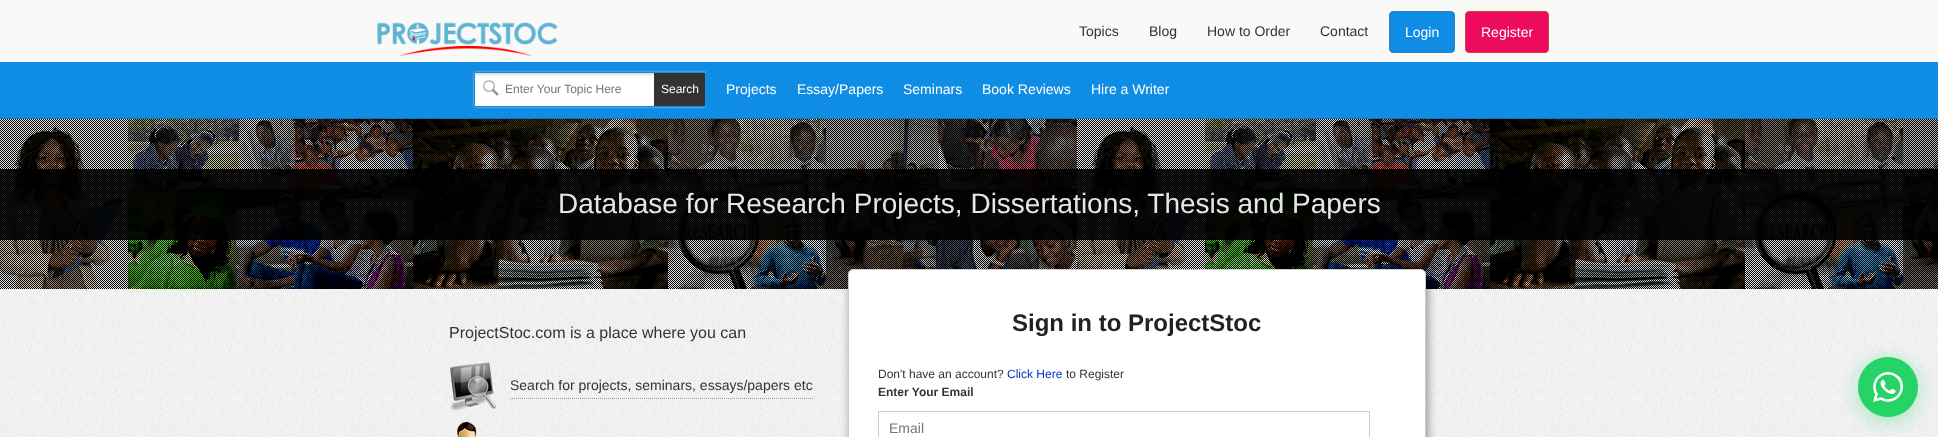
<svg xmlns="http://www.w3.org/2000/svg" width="1938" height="437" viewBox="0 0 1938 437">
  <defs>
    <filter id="blur1" x="-50%" y="-200%" width="200%" height="500%"><feGaussianBlur stdDeviation="1"/></filter>
    <filter id="blur2" x="-50%" y="-200%" width="200%" height="500%"><feGaussianBlur stdDeviation="5"/></filter>
    <filter id="blur3" x="-50%" y="-200%" width="200%" height="500%"><feGaussianBlur stdDeviation="10"/></filter>
  </defs>
  <rect width="100%" height="100%" fill="#0f8ce4"/>
  <rect x="0" y="0" width="1938" height="62" fill="#f9faf7"/>
  <image x="377" y="22" width="181" height="34" href="img1.png"/>
  <text x="1079" y="36" font-family="Liberation Sans" font-size="14" fill="#333333">Topics</text>
  <text x="1149" y="36" font-family="Liberation Sans" font-size="14" fill="#333333">Blog</text>
  <text x="1207" y="36" font-family="Liberation Sans" font-size="14" fill="#333333">How to Order</text>
  <text x="1320" y="36" font-family="Liberation Sans" font-size="14" fill="#333333">Contact</text>
  <rect x="1389.5" y="11.5" width="65" height="41" rx="3.5" fill="#0f8ce4" stroke="#357ebd"/>
  <text x="1405" y="37" font-family="Liberation Sans" font-size="14" fill="#ffffff">Login</text>
  <rect x="1465.5" y="11.5" width="83" height="41" rx="3.5" fill="#ec0b5e" stroke="#d43f3a"/>
  <text x="1481" y="37" font-family="Liberation Sans" font-size="14" fill="#ffffff">Register</text>
  <rect x="0" y="118" width="1938" height="1" fill="#1574b7"/>
  <rect x="474" y="72" width="232" height="35" rx="2" fill="#cccccc" filter="url(#blur1)"/>
  <rect x="474.5" y="72.5" width="231" height="34" rx="1.5" fill="none" stroke="#0f8ce4"/>
  <rect x="475" y="96" width="179" height="10" fill="#ffffff"/>
  <image x="475" y="73" width="179" height="23" href="img2.png"/>
  <text x="505" y="93" font-family="Liberation Sans" font-size="12" fill="#757575">Enter Your Topic Here</text>
  <rect x="654" y="73" width="51" height="33" fill="#333333"/>
  <text x="661" y="93" font-family="Liberation Sans" font-size="12" fill="#ffffff">Search</text>
  <rect x="706" y="72" width="2" height="35" fill="#0f8ce4"/>
  <text x="726" y="94" font-family="Liberation Sans" font-size="14" fill="#ffffff">Projects</text>
  <text x="797" y="94" font-family="Liberation Sans" font-size="14" fill="#ffffff">Essay/Papers</text>
  <text x="903" y="94" font-family="Liberation Sans" font-size="14" fill="#ffffff">Seminars</text>
  <text x="982" y="94" font-family="Liberation Sans" font-size="14" fill="#ffffff">Book Reviews</text>
  <text x="1091" y="94" font-family="Liberation Sans" font-size="14" fill="#ffffff">Hire a Writer</text>
  <image x="0" y="119" width="1938" height="170" href="img3.png"/>
  <rect x="0" y="169" width="1938" height="71" fill="#000000" fill-opacity="0.9"/>
  <text x="558" y="213" font-family="Liberation Sans" font-size="28" fill="#e6e6e6">Database for Research Projects, Dissertations, Thesis and Papers</text>
  <image x="0" y="289" width="1938" height="148" href="img4.png"/>
  <text x="449" y="338" font-family="Liberation Sans" font-size="16" fill="#333333">ProjectStoc.com is a place where you can</text>
  <image x="450" y="362" width="46" height="49" href="img5.png"/>
  <text x="510" y="390" font-family="Liberation Sans" font-size="14" fill="#333333">Search for projects, seminars, essays/papers etc</text>
  <path d="M510 398.5H813" fill="none" stroke="#999999" stroke-dasharray="1 1"/>
  <image x="457" y="422" width="20" height="15" href="img6.png"/>
  <rect x="850" y="274" width="578" height="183" rx="5" fill="#000000" fill-opacity="0.4" filter="url(#blur2)"/>
  <rect x="848.5" y="269.5" width="577" height="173" rx="4.5" fill="#ffffff" stroke="#cccccc"/>
  <text x="1012" y="331" font-family="Liberation Sans" font-size="24" font-weight="bold" fill="#222222">Sign in to ProjectStoc</text>
  <text x="878" y="378" font-family="Liberation Sans" font-size="12" fill="#333333">Don't have an account?</text>
  <text x="1007" y="378" font-family="Liberation Sans" font-size="12" fill="#0033cc">Click Here</text>
  <text x="1066" y="378" font-family="Liberation Sans" font-size="12" fill="#333333">to Register</text>
  <text x="878" y="396" font-family="Liberation Sans" font-size="12" font-weight="bold" fill="#333333">Enter Your Email</text>
  <rect x="878.5" y="411.5" width="491" height="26" fill="none" stroke="#cccccc"/>
  <text x="889" y="433" font-family="Liberation Sans" font-size="14" fill="#757575">Email</text>
  <rect x="1858" y="361" width="60" height="60" rx="30" fill="#25d366" fill-opacity="0.4" filter="url(#blur3)"/>
  <circle cx="1888" cy="387" r="30" fill="#25d366"/>
  <image x="1873" y="372" width="30" height="30" href="img7.png"/>
</svg>
